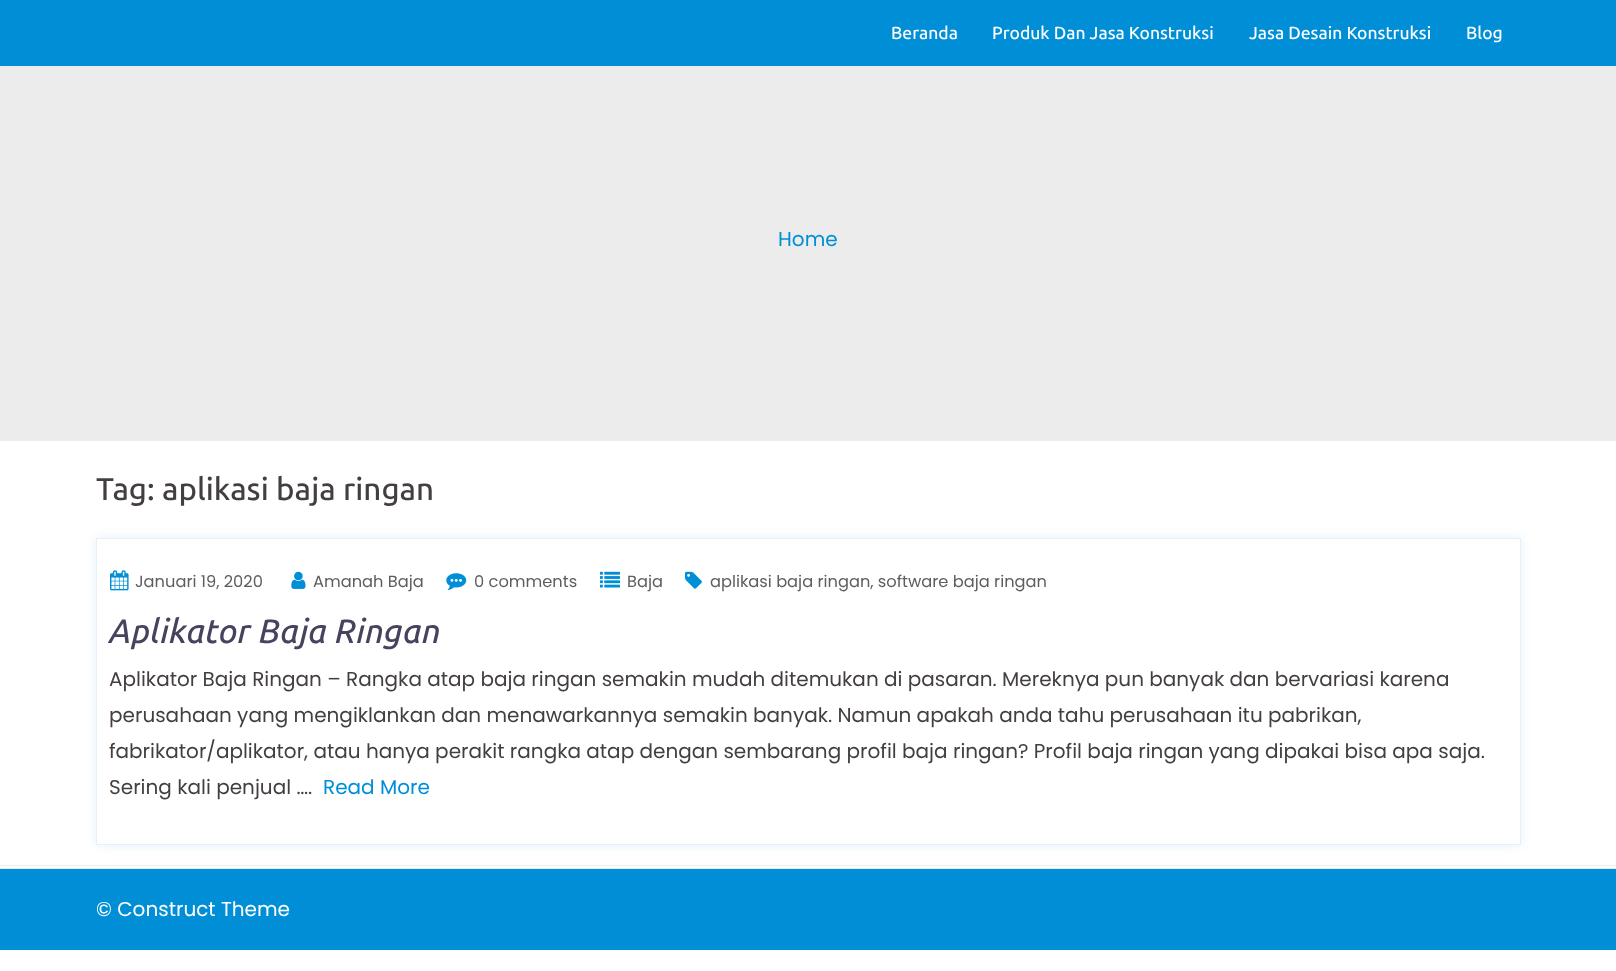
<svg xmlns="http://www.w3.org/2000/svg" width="1616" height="971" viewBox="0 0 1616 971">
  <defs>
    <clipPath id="clip1"><path d="M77 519H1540V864H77ZM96 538H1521V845H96Z" clip-rule="evenodd"/></clipPath>
    <filter id="blur1" x="-50%" y="-200%" width="200%" height="500%"><feGaussianBlur stdDeviation="6"/></filter>
  </defs>
  <rect width="100%" height="100%" fill="#ffffff"/>
  <rect x="0" y="0" width="1616" height="66" fill="#008fd7"/>
  <text x="891" y="39" font-family="Ubuntu" font-size="17.5" font-weight="500" fill="#ffffff">Beranda</text>
  <text x="992" y="39" font-family="Ubuntu" font-size="17.5" font-weight="500" fill="#ffffff">Produk Dan Jasa Konstruksi</text>
  <text x="1249" y="39" font-family="Ubuntu" font-size="17.5" font-weight="500" fill="#ffffff">Jasa Desain Konstruksi</text>
  <text x="1466" y="39" font-family="Ubuntu" font-size="17.5" font-weight="500" fill="#ffffff">Blog</text>
  <rect x="0" y="66" width="1616" height="375" fill="#ececec"/>
  <text x="778" y="246" font-family="Poppins" font-size="20" fill="#008fd7">Home</text>
  <text x="96" y="500" font-family="Ubuntu" font-size="31.25" font-weight="500" fill="#443f3f">Tag: aplikasi baja ringan</text>
  <g clip-path="url(#clip1)">
    <rect x="96" y="538" width="1425" height="307" fill="#e6f0fa" filter="url(#blur1)"/>
  </g>
  <rect x="96.5" y="538.5" width="1424" height="306" fill="none" stroke="#e6f0fa"/>
  <image x="110" y="570" width="19" height="21" href="img1.png"/>
  <text x="135" y="587" font-family="Poppins" font-size="16.25" fill="#5e5e5e">Januari 19, 2020</text>
  <image x="291" y="571" width="15" height="18" href="img2.png"/>
  <text x="313" y="587" font-family="Poppins" font-size="16.25" fill="#5e5e5e">Amanah Baja</text>
  <image x="446" y="573" width="21" height="17" href="img3.png"/>
  <text x="474" y="587" font-family="Poppins" font-size="16.25" fill="#5e5e5e">0 comments</text>
  <image x="600" y="571" width="20" height="17" href="img4.png"/>
  <text x="627" y="587" font-family="Poppins" font-size="16.25" fill="#5e5e5e">Baja</text>
  <image x="685" y="571" width="17" height="18" href="img5.png"/>
  <text x="710" y="587" font-family="Poppins" font-size="16.25" fill="#5e5e5e">aplikasi baja ringan, software baja ringan</text>
  <text x="109" y="643" font-family="Ubuntu" font-size="33.75" font-weight="500" font-style="italic" fill="#47425d">Aplikator Baja Ringan</text>
  <text x="109" y="686" font-family="Poppins" font-size="20" fill="#443f3f">Aplikator Baja Ringan – Rangka atap baja ringan semakin mudah ditemukan di pasaran. Mereknya pun banyak dan bervariasi karena</text>
  <text x="109" y="722" font-family="Poppins" font-size="20" fill="#443f3f">perusahaan yang mengiklankan dan menawarkannya semakin banyak. Namun apakah anda tahu perusahaan itu pabrikan,</text>
  <text x="109" y="758" font-family="Poppins" font-size="20" fill="#443f3f">fabrikator/aplikator, atau hanya perakit rangka atap dengan sembarang profil baja ringan? Profil baja ringan yang dipakai bisa apa saja.</text>
  <text x="109" y="794" font-family="Poppins" font-size="20" fill="#443f3f">Sering kali penjual ….</text>
  <text x="323" y="794" font-family="Poppins" font-size="20" fill="#008fd7">Read More</text>
  <rect x="0" y="865" width="1616" height="1" fill="#ebebeb"/>
  <rect x="0" y="869" width="1616" height="81" fill="#008fd7"/>
  <rect x="0" y="868" width="1616" height="1" fill="#ebebeb"/>
  <text x="96" y="916" font-family="Poppins" font-size="20" fill="#ffffff">© Construct Theme</text>
</svg>
